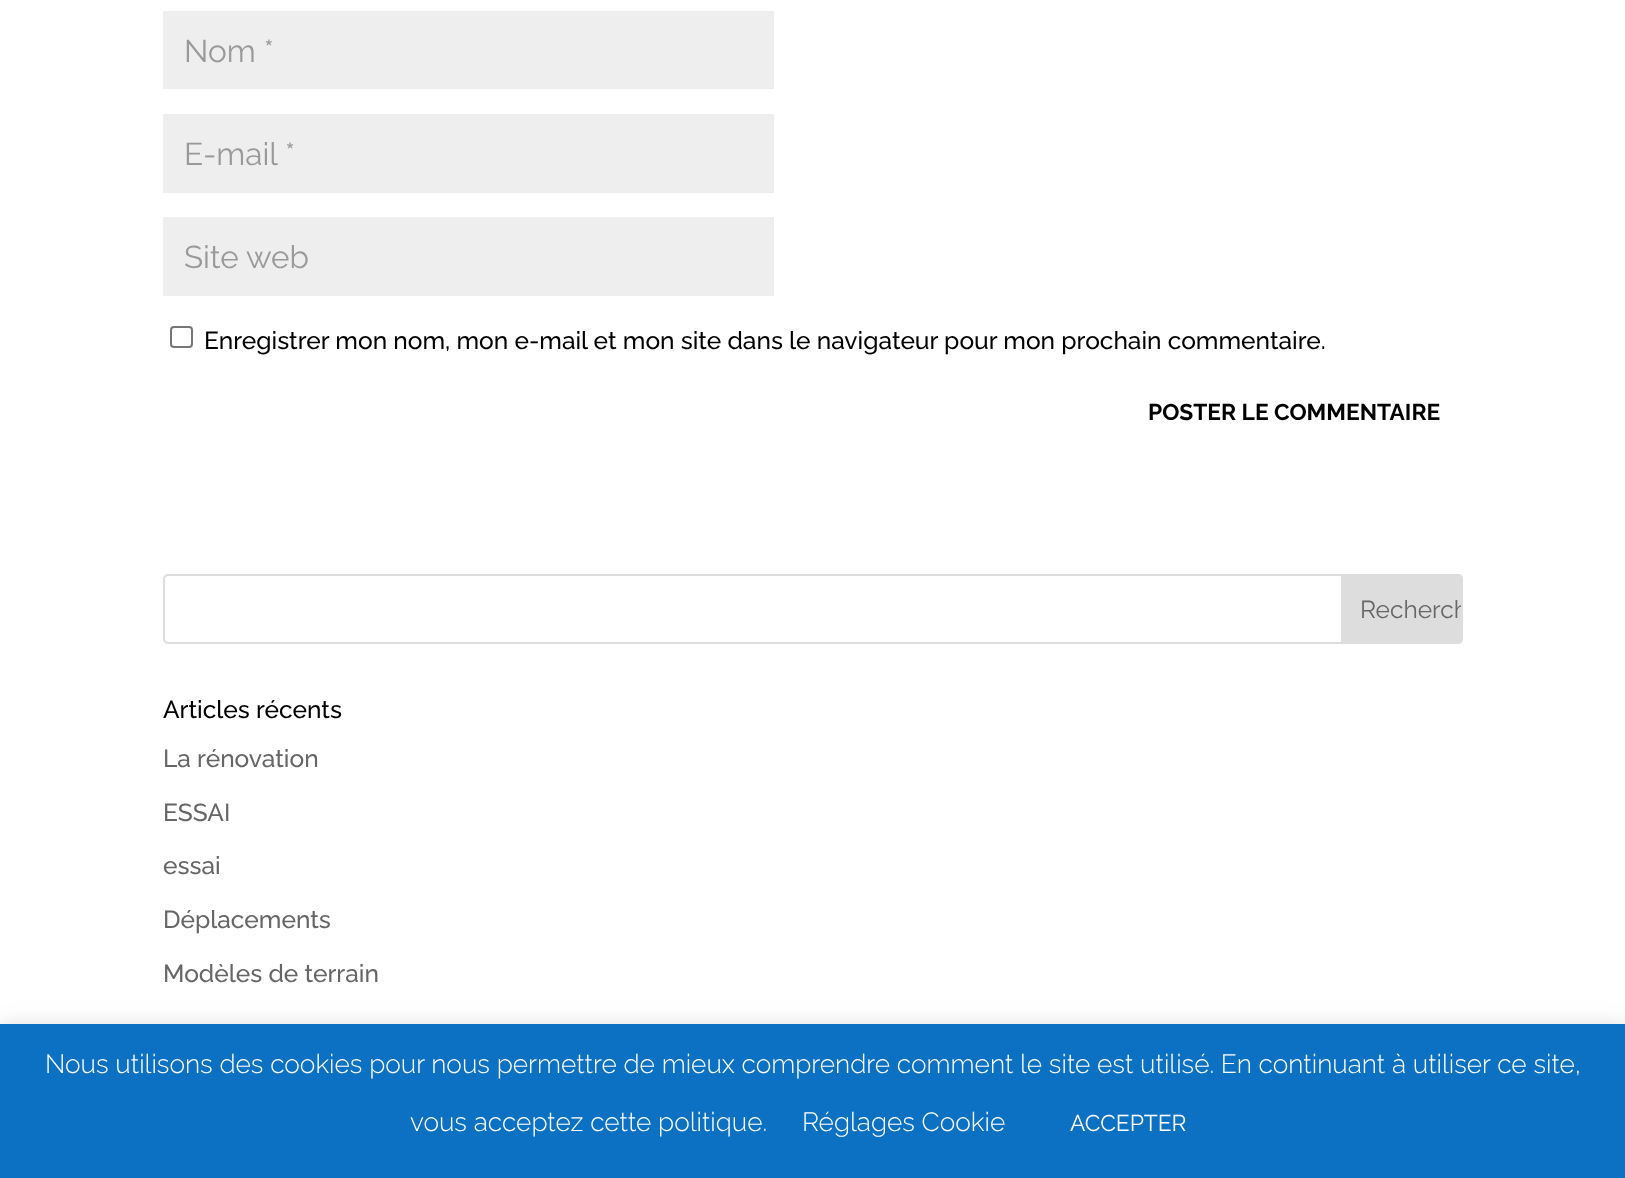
<svg xmlns="http://www.w3.org/2000/svg" width="1625" height="1178" viewBox="0 0 1625 1178">
  <defs>
    <clipPath id="clip1"><path d="M1342 576H1457C1459 576 1461 578 1461 580V638C1461 640 1459 642 1457 642H1342Z"/></clipPath>
    <filter id="blur1" x="-50%" y="-200%" width="200%" height="500%"><feGaussianBlur stdDeviation="9"/></filter>
  </defs>
  <rect width="100%" height="100%" fill="#ffffff"/>
  <rect x="163" y="11" width="611" height="78" fill="#eeeeee"/>
  <text x="184" y="62" font-family="Raleway" font-size="31.5" fill="#999999">Nom *</text>
  <rect x="163" y="114" width="611" height="79" fill="#eeeeee"/>
  <text x="184" y="165" font-family="Raleway" font-size="31.5" fill="#999999">E-mail *</text>
  <rect x="163" y="217" width="611" height="79" fill="#eeeeee"/>
  <text x="184" y="268" font-family="Raleway" font-size="31.5" fill="#999999">Site web</text>
  <rect x="171" y="327" width="21" height="20" rx="3" fill="none" stroke="#767676" stroke-width="2"/>
  <text x="204" y="349" font-family="Raleway" font-size="24.5" font-weight="500" fill="#000000">Enregistrer mon nom, mon e-mail et mon site dans le navigateur pour mon prochain commentaire.</text>
  <text x="1148" y="420" font-family="Raleway" font-size="22.75" font-weight="bold" fill="#000000">POSTER LE COMMENTAIRE</text>
  <rect x="164" y="575" width="1298" height="68" rx="4" fill="none" stroke="#dddddd" stroke-width="2"/>
  <path d="M1342 575H1458C1460 575 1462 577 1462 579V639C1462 641 1460 643 1458 643H1342Z" fill="#dddddd" stroke="#dddddd" stroke-width="2"/>
  <g clip-path="url(#clip1)">
    <text x="1360" y="618" font-family="Raleway" font-size="24.5" fill="#666666">Recherch</text>
  </g>
  <text x="163" y="718" font-family="Raleway" font-size="24.5" font-weight="500" fill="#000000">Articles récents</text>
  <text x="163" y="767" font-family="Raleway" font-size="24.5" font-weight="500" fill="#666666">La rénovation</text>
  <text x="163" y="821" font-family="Raleway" font-size="24.5" font-weight="500" fill="#666666">ESSAI</text>
  <text x="163" y="874" font-family="Raleway" font-size="24.5" font-weight="500" fill="#666666">essai</text>
  <text x="163" y="928" font-family="Raleway" font-size="24.5" font-weight="500" fill="#666666">Déplacements</text>
  <text x="163" y="982" font-family="Raleway" font-size="24.5" font-weight="500" fill="#666666">Modèles de terrain</text>
  <rect x="0" y="1022" width="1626" height="156" fill="#acabab" fill-opacity="0.3" filter="url(#blur1)"/>
  <rect x="0" y="1024" width="1625" height="154" fill="#0c71c3"/>
  <text x="45" y="1073" font-family="Raleway" font-size="26.25" font-weight="300" fill="#ffffff">Nous utilisons des cookies pour nous permettre de mieux comprendre comment le site est utilisé. En continuant à utiliser ce site,</text>
  <text x="410" y="1131" font-family="Raleway" font-size="26.25" font-weight="300" fill="#ffffff">vous acceptez cette politique.</text>
  <text x="802" y="1131" font-family="Raleway" font-size="26.25" font-weight="300" fill="#ffffff">Réglages Cookie</text>
  <text x="1070" y="1131" font-family="Raleway" font-size="22.75" fill="#ffffff">ACCEPTER</text>
</svg>
